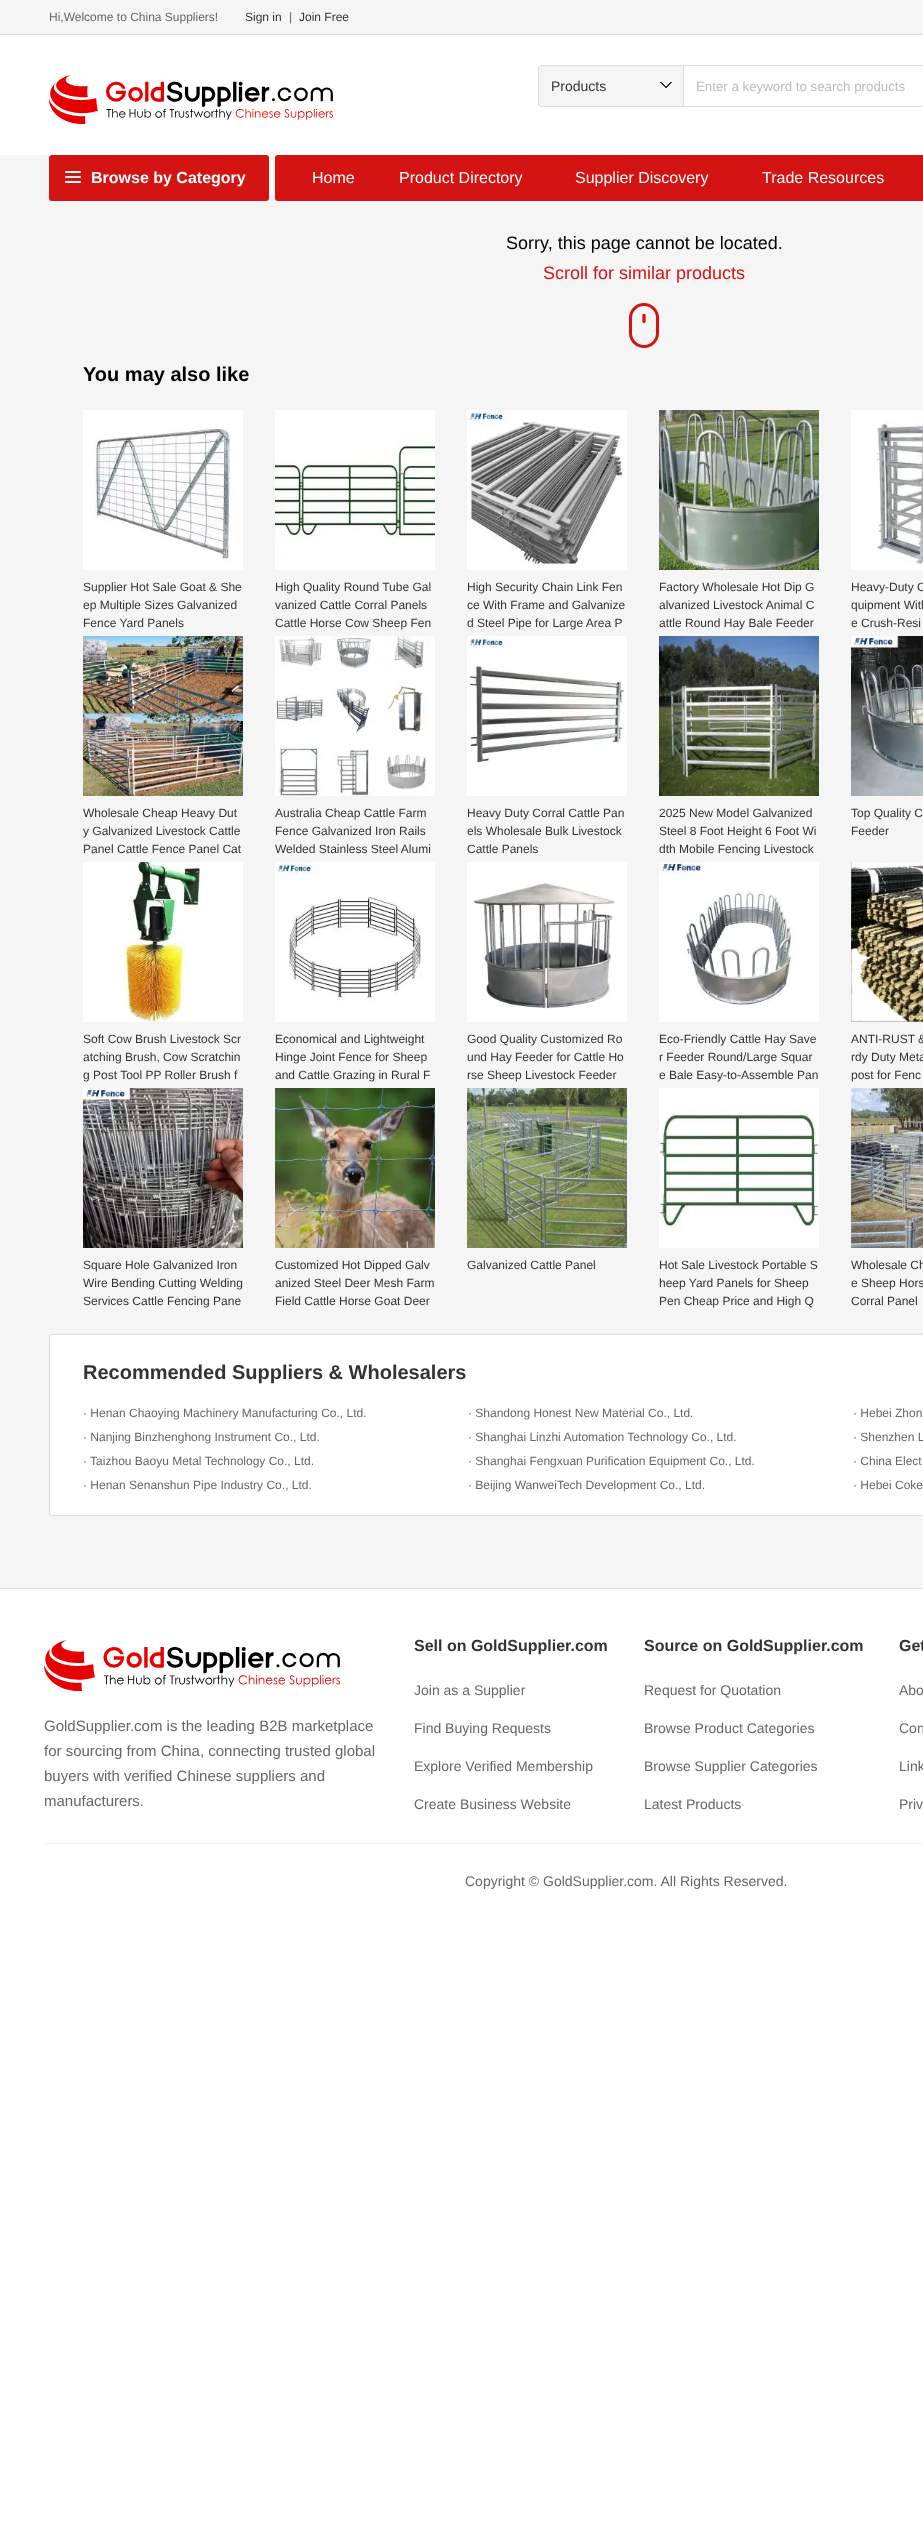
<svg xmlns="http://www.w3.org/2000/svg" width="923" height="2543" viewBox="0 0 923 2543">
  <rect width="100%" height="100%" fill="#ffffff"/>
  <rect x="0" y="0" width="923" height="1588" fill="#f5f5f5"/>
  <rect x="0" y="34" width="923" height="1" fill="#dddddd"/>
  <text x="49" y="21" font-family="Liberation Sans" font-size="12" fill="#666666">Hi,Welcome to China Suppliers!</text>
  <text x="245" y="21" font-family="Liberation Sans" font-size="12" fill="#333333">Sign in</text>
  <text x="289" y="21" font-family="Liberation Sans" font-size="12" fill="#666666">|</text>
  <text x="299" y="21" font-family="Liberation Sans" font-size="12" fill="#333333">Join Free</text>
  <rect x="0" y="35" width="923" height="120" fill="#ffffff"/>
  <image x="49" y="75" width="284" height="49" href="img1.png"/>
  <rect x="683.5" y="65.5" width="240" height="41" fill="none" stroke="#dddddd"/>
  <path d="M541 65.5H683.5V106.5H541C539.5 106.5 538.5 105.5 538.5 104V68C538.5 66.5 539.5 65.5 541 65.5Z" fill="#f5f5f5" stroke="#dddddd"/>
  <text x="551" y="91" font-family="Liberation Sans" font-size="14" fill="#333333">Products</text>
  <image x="660" y="82" width="13" height="6" href="img2.png"/>
  <text x="696" y="91" font-family="Liberation Sans" font-size="13.3" fill="#bcbcbc">Enter a keyword to search products</text>
  <rect x="49" y="155" width="220" height="46" rx="3" fill="#d41313"/>
  <image x="65" y="170" width="16" height="31" href="img3.png"/>
  <text x="91" y="183" font-family="Liberation Sans" font-size="16" font-weight="bold" fill="#ffffff">Browse by Category</text>
  <rect x="275" y="155" width="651" height="46" rx="3" fill="#d41313"/>
  <text x="312" y="183" font-family="Liberation Sans" font-size="16" fill="#ffffff">Home</text>
  <text x="399" y="183" font-family="Liberation Sans" font-size="16" fill="#ffffff">Product Directory</text>
  <text x="575" y="183" font-family="Liberation Sans" font-size="16" fill="#ffffff">Supplier Discovery</text>
  <text x="762" y="183" font-family="Liberation Sans" font-size="16" fill="#ffffff">Trade Resources</text>
  <text x="506" y="249" font-family="Liberation Sans" font-size="18" fill="#000000">Sorry, this page cannot be located.</text>
  <text x="543" y="279" font-family="Liberation Sans" font-size="18" fill="#d41313">Scroll for similar products</text>
  <image x="629" y="303" width="30" height="45" href="img4.png"/>
  <text x="83" y="381" font-family="Liberation Sans" font-size="20" font-weight="bold" fill="#000000">You may also like</text>
  <image x="83" y="410" width="160" height="160" href="img5.png"/>
  <text x="83" y="591" font-family="Liberation Sans" font-size="12" fill="#333333">Supplier Hot Sale Goat &amp; She</text>
  <text x="83" y="609" font-family="Liberation Sans" font-size="12" fill="#333333">ep Multiple Sizes Galvanized</text>
  <text x="83" y="627" font-family="Liberation Sans" font-size="12" fill="#333333">Fence Yard Panels</text>
  <image x="275" y="410" width="160" height="160" href="img6.png"/>
  <text x="275" y="591" font-family="Liberation Sans" font-size="12" fill="#333333">High Quality Round Tube Gal</text>
  <text x="275" y="609" font-family="Liberation Sans" font-size="12" fill="#333333">vanized Cattle Corral Panels</text>
  <text x="275" y="627" font-family="Liberation Sans" font-size="12" fill="#333333">Cattle Horse Cow Sheep Fen</text>
  <image x="467" y="410" width="160" height="160" href="img7.png"/>
  <text x="467" y="591" font-family="Liberation Sans" font-size="12" fill="#333333">High Security Chain Link Fen</text>
  <text x="467" y="609" font-family="Liberation Sans" font-size="12" fill="#333333">ce With Frame and Galvanize</text>
  <text x="467" y="627" font-family="Liberation Sans" font-size="12" fill="#333333">d Steel Pipe for Large Area P</text>
  <image x="659" y="410" width="160" height="160" href="img8.png"/>
  <text x="659" y="591" font-family="Liberation Sans" font-size="12" fill="#333333">Factory Wholesale Hot Dip G</text>
  <text x="659" y="609" font-family="Liberation Sans" font-size="12" fill="#333333">alvanized Livestock Animal C</text>
  <text x="659" y="627" font-family="Liberation Sans" font-size="12" fill="#333333">attle Round Hay Bale Feeder</text>
  <image x="851" y="410" width="72" height="160" href="img9.png"/>
  <text x="851" y="591" font-family="Liberation Sans" font-size="12" fill="#333333">Heavy-Duty C</text>
  <text x="851" y="609" font-family="Liberation Sans" font-size="12" fill="#333333">quipment With</text>
  <text x="851" y="627" font-family="Liberation Sans" font-size="12" fill="#333333">e Crush-Resi</text>
  <image x="83" y="636" width="160" height="160" href="img10.png"/>
  <text x="83" y="817" font-family="Liberation Sans" font-size="12" fill="#333333">Wholesale Cheap Heavy Dut</text>
  <text x="83" y="835" font-family="Liberation Sans" font-size="12" fill="#333333">y Galvanized Livestock Cattle</text>
  <text x="83" y="853" font-family="Liberation Sans" font-size="12" fill="#333333">Panel Cattle Fence Panel Cat</text>
  <image x="275" y="636" width="160" height="160" href="img11.png"/>
  <text x="275" y="817" font-family="Liberation Sans" font-size="12" fill="#333333">Australia Cheap Cattle Farm</text>
  <text x="275" y="835" font-family="Liberation Sans" font-size="12" fill="#333333">Fence Galvanized Iron Rails</text>
  <text x="275" y="853" font-family="Liberation Sans" font-size="12" fill="#333333">Welded Stainless Steel Alumi</text>
  <image x="467" y="636" width="160" height="160" href="img12.png"/>
  <text x="467" y="817" font-family="Liberation Sans" font-size="12" fill="#333333">Heavy Duty Corral Cattle Pan</text>
  <text x="467" y="835" font-family="Liberation Sans" font-size="12" fill="#333333">els Wholesale Bulk Livestock</text>
  <text x="467" y="853" font-family="Liberation Sans" font-size="12" fill="#333333">Cattle Panels</text>
  <image x="659" y="636" width="160" height="160" href="img13.png"/>
  <text x="659" y="817" font-family="Liberation Sans" font-size="12" fill="#333333">2025 New Model Galvanized</text>
  <text x="659" y="835" font-family="Liberation Sans" font-size="12" fill="#333333">Steel 8 Foot Height 6 Foot Wi</text>
  <text x="659" y="853" font-family="Liberation Sans" font-size="12" fill="#333333">dth Mobile Fencing Livestock</text>
  <image x="851" y="636" width="72" height="160" href="img14.png"/>
  <text x="851" y="817" font-family="Liberation Sans" font-size="12" fill="#333333">Top Quality C</text>
  <text x="851" y="835" font-family="Liberation Sans" font-size="12" fill="#333333">Feeder</text>
  <image x="83" y="862" width="160" height="160" href="img15.png"/>
  <text x="83" y="1043" font-family="Liberation Sans" font-size="12" fill="#333333">Soft Cow Brush Livestock Scr</text>
  <text x="83" y="1061" font-family="Liberation Sans" font-size="12" fill="#333333">atching Brush, Cow Scratchin</text>
  <text x="83" y="1079" font-family="Liberation Sans" font-size="12" fill="#333333">g Post Tool PP Roller Brush f</text>
  <image x="275" y="862" width="160" height="160" href="img16.png"/>
  <text x="275" y="1043" font-family="Liberation Sans" font-size="12" fill="#333333">Economical and Lightweight</text>
  <text x="275" y="1061" font-family="Liberation Sans" font-size="12" fill="#333333">Hinge Joint Fence for Sheep</text>
  <text x="275" y="1079" font-family="Liberation Sans" font-size="12" fill="#333333">and Cattle Grazing in Rural F</text>
  <image x="467" y="862" width="160" height="160" href="img17.png"/>
  <text x="467" y="1043" font-family="Liberation Sans" font-size="12" fill="#333333">Good Quality Customized Ro</text>
  <text x="467" y="1061" font-family="Liberation Sans" font-size="12" fill="#333333">und Hay Feeder for Cattle Ho</text>
  <text x="467" y="1079" font-family="Liberation Sans" font-size="12" fill="#333333">rse Sheep Livestock Feeder</text>
  <image x="659" y="862" width="160" height="160" href="img18.png"/>
  <text x="659" y="1043" font-family="Liberation Sans" font-size="12" fill="#333333">Eco-Friendly Cattle Hay Save</text>
  <text x="659" y="1061" font-family="Liberation Sans" font-size="12" fill="#333333">r Feeder Round/Large Squar</text>
  <text x="659" y="1079" font-family="Liberation Sans" font-size="12" fill="#333333">e Bale Easy-to-Assemble Pan</text>
  <image x="851" y="862" width="72" height="160" href="img19.png"/>
  <text x="851" y="1043" font-family="Liberation Sans" font-size="12" fill="#333333">ANTI-RUST &amp;</text>
  <text x="851" y="1061" font-family="Liberation Sans" font-size="12" fill="#333333">rdy Duty Meta</text>
  <text x="851" y="1079" font-family="Liberation Sans" font-size="12" fill="#333333">post for Fenc</text>
  <image x="83" y="1088" width="160" height="160" href="img20.png"/>
  <text x="83" y="1269" font-family="Liberation Sans" font-size="12" fill="#333333">Square Hole Galvanized Iron</text>
  <text x="83" y="1287" font-family="Liberation Sans" font-size="12" fill="#333333">Wire Bending Cutting Welding</text>
  <text x="83" y="1305" font-family="Liberation Sans" font-size="12" fill="#333333">Services Cattle Fencing Pane</text>
  <image x="275" y="1088" width="160" height="160" href="img21.png"/>
  <text x="275" y="1269" font-family="Liberation Sans" font-size="12" fill="#333333">Customized Hot Dipped Galv</text>
  <text x="275" y="1287" font-family="Liberation Sans" font-size="12" fill="#333333">anized Steel Deer Mesh Farm</text>
  <text x="275" y="1305" font-family="Liberation Sans" font-size="12" fill="#333333">Field Cattle Horse Goat Deer</text>
  <image x="467" y="1088" width="160" height="160" href="img22.png"/>
  <text x="467" y="1269" font-family="Liberation Sans" font-size="12" fill="#333333">Galvanized Cattle Panel</text>
  <image x="659" y="1088" width="160" height="160" href="img23.png"/>
  <text x="659" y="1269" font-family="Liberation Sans" font-size="12" fill="#333333">Hot Sale Livestock Portable S</text>
  <text x="659" y="1287" font-family="Liberation Sans" font-size="12" fill="#333333">heep Yard Panels for Sheep</text>
  <text x="659" y="1305" font-family="Liberation Sans" font-size="12" fill="#333333">Pen Cheap Price and High Q</text>
  <image x="851" y="1088" width="72" height="160" href="img24.png"/>
  <text x="851" y="1269" font-family="Liberation Sans" font-size="12" fill="#333333">Wholesale Ch</text>
  <text x="851" y="1287" font-family="Liberation Sans" font-size="12" fill="#333333">e Sheep Hors</text>
  <text x="851" y="1305" font-family="Liberation Sans" font-size="12" fill="#333333">Corral Panel</text>
  <rect x="49.5" y="1334.5" width="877" height="181" rx="2.5" fill="#ffffff" stroke="#dddddd"/>
  <text x="83" y="1379" font-family="Liberation Sans" font-size="20" font-weight="bold" fill="#333333">Recommended Suppliers &amp; Wholesalers</text>
  <text x="83" y="1417" font-family="Liberation Sans" font-size="12" fill="#666666">· Henan Chaoying Machinery Manufacturing Co., Ltd.</text>
  <text x="468" y="1417" font-family="Liberation Sans" font-size="12" fill="#666666">· Shandong Honest New Material Co., Ltd.</text>
  <text x="853" y="1417" font-family="Liberation Sans" font-size="12" fill="#666666">· Hebei Zhon</text>
  <text x="83" y="1441" font-family="Liberation Sans" font-size="12" fill="#666666">· Nanjing Binzhenghong Instrument Co., Ltd.</text>
  <text x="468" y="1441" font-family="Liberation Sans" font-size="12" fill="#666666">· Shanghai Linzhi Automation Technology Co., Ltd.</text>
  <text x="853" y="1441" font-family="Liberation Sans" font-size="12" fill="#666666">· Shenzhen L</text>
  <text x="83" y="1465" font-family="Liberation Sans" font-size="12" fill="#666666">· Taizhou Baoyu Metal Technology Co., Ltd.</text>
  <text x="468" y="1465" font-family="Liberation Sans" font-size="12" fill="#666666">· Shanghai Fengxuan Purification Equipment Co., Ltd.</text>
  <text x="853" y="1465" font-family="Liberation Sans" font-size="12" fill="#666666">· China Elect</text>
  <text x="83" y="1489" font-family="Liberation Sans" font-size="12" fill="#666666">· Henan Senanshun Pipe Industry Co., Ltd.</text>
  <text x="468" y="1489" font-family="Liberation Sans" font-size="12" fill="#666666">· Beijing WanweiTech Development Co., Ltd.</text>
  <text x="853" y="1489" font-family="Liberation Sans" font-size="12" fill="#666666">· Hebei Coke</text>
  <rect x="0" y="1588" width="923" height="1" fill="#dcdee3"/>
  <rect x="44" y="1843" width="879" height="1" fill="#f3f3f3"/>
  <image x="44" y="1640" width="296" height="51" href="img25.png"/>
  <text x="44" y="1731" font-family="Liberation Sans" font-size="15" fill="#666666">GoldSupplier.com is the leading B2B marketplace</text>
  <text x="44" y="1756" font-family="Liberation Sans" font-size="15" fill="#666666">for sourcing from China, connecting trusted global</text>
  <text x="44" y="1781" font-family="Liberation Sans" font-size="15" fill="#666666">buyers with verified Chinese suppliers and</text>
  <text x="44" y="1806" font-family="Liberation Sans" font-size="15" fill="#666666">manufacturers.</text>
  <text x="414" y="1651" font-family="Liberation Sans" font-size="16" font-weight="bold" fill="#333333">Sell on GoldSupplier.com</text>
  <text x="414" y="1695" font-family="Liberation Sans" font-size="14" fill="#666666">Join as a Supplier</text>
  <text x="414" y="1733" font-family="Liberation Sans" font-size="14" fill="#666666">Find Buying Requests</text>
  <text x="414" y="1771" font-family="Liberation Sans" font-size="14" fill="#666666">Explore Verified Membership</text>
  <text x="414" y="1809" font-family="Liberation Sans" font-size="14" fill="#666666">Create Business Website</text>
  <text x="644" y="1651" font-family="Liberation Sans" font-size="16" font-weight="bold" fill="#333333">Source on GoldSupplier.com</text>
  <text x="644" y="1695" font-family="Liberation Sans" font-size="14" fill="#666666">Request for Quotation</text>
  <text x="644" y="1733" font-family="Liberation Sans" font-size="14" fill="#666666">Browse Product Categories</text>
  <text x="644" y="1771" font-family="Liberation Sans" font-size="14" fill="#666666">Browse Supplier Categories</text>
  <text x="644" y="1809" font-family="Liberation Sans" font-size="14" fill="#666666">Latest Products</text>
  <text x="899" y="1651" font-family="Liberation Sans" font-size="16" font-weight="bold" fill="#333333">Get</text>
  <text x="899" y="1695" font-family="Liberation Sans" font-size="14" fill="#666666">Abo</text>
  <text x="899" y="1733" font-family="Liberation Sans" font-size="14" fill="#666666">Con</text>
  <text x="899" y="1771" font-family="Liberation Sans" font-size="14" fill="#666666">Link</text>
  <text x="899" y="1809" font-family="Liberation Sans" font-size="14" fill="#666666">Priv</text>
  <text x="465" y="1886" font-family="Liberation Sans" font-size="14" fill="#666666">Copyright © GoldSupplier.com. All Rights Reserved.</text>
</svg>
